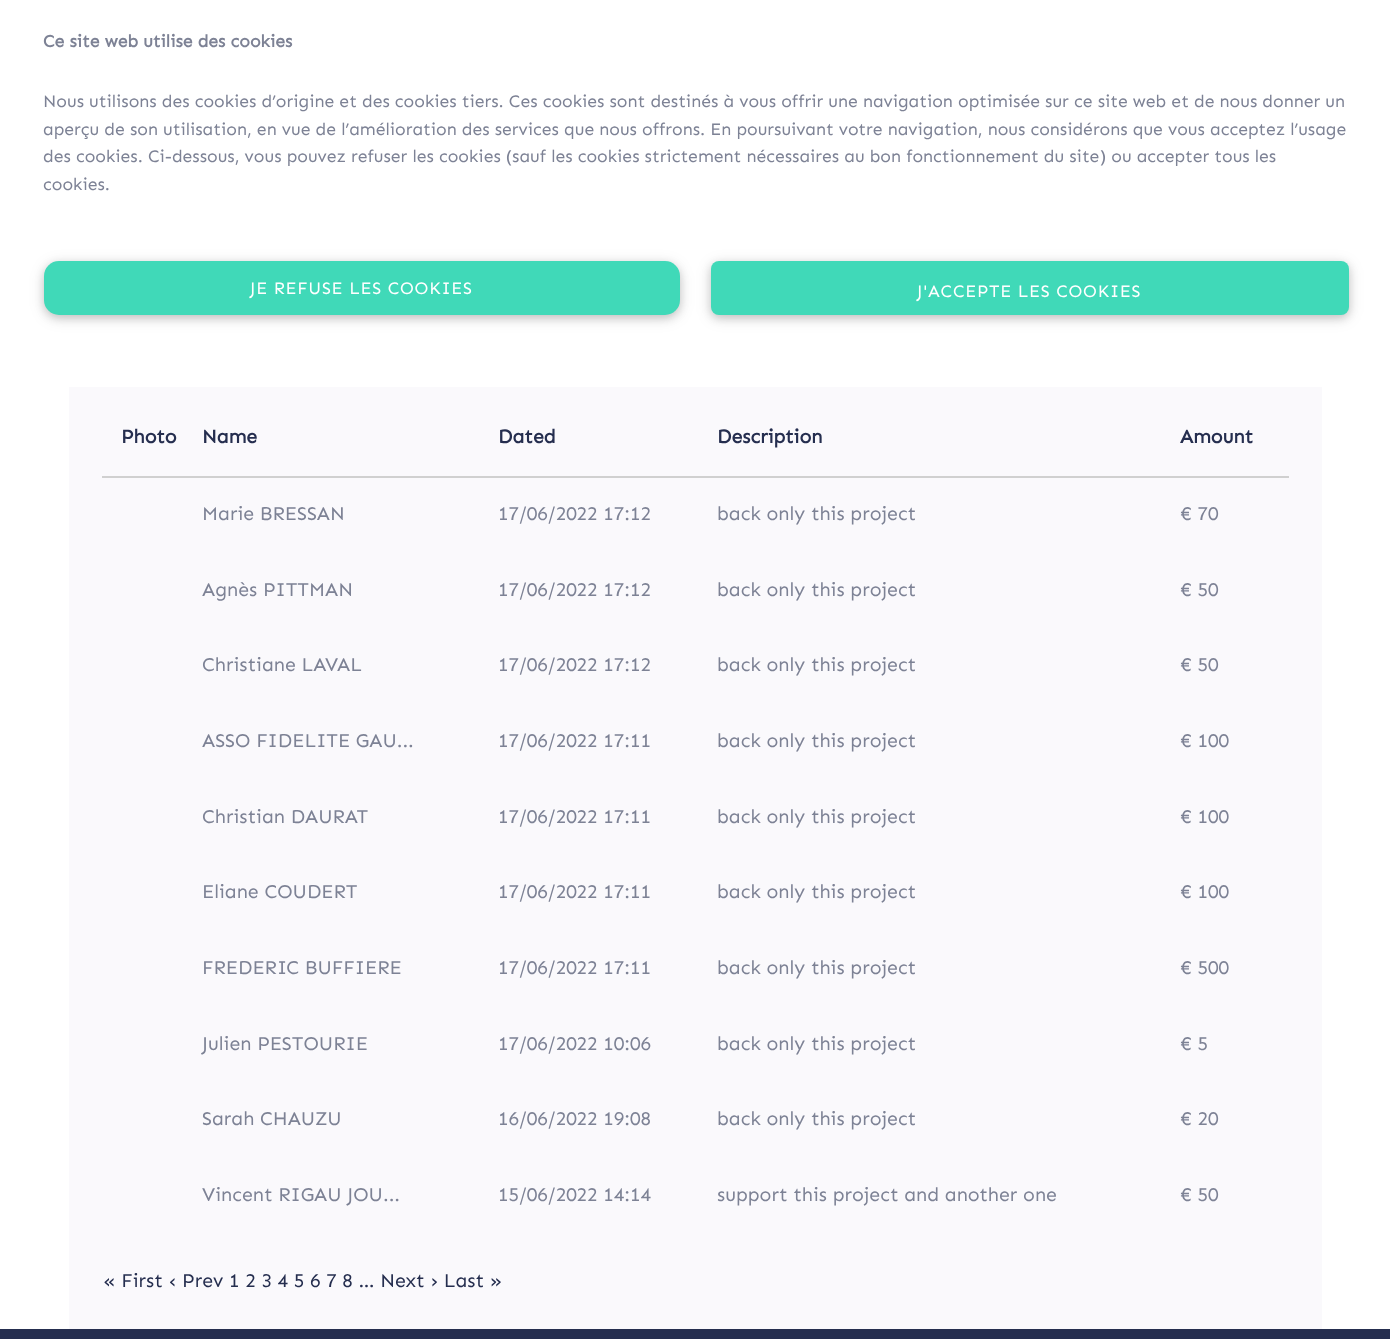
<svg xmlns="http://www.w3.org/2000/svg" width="1390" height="1339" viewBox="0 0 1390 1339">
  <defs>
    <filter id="blur1" x="-50%" y="-200%" width="200%" height="500%"><feGaussianBlur stdDeviation="7.5"/></filter>
    <filter id="blur2" x="-50%" y="-200%" width="200%" height="500%"><feGaussianBlur stdDeviation="4"/></filter>
  </defs>
  <rect width="100%" height="100%" fill="#ffffff"/>
  <text x="43" y="47" font-family="Sen" font-size="17.55" font-weight="bold" fill="#7d8295">Ce site web utilise des cookies</text>
  <text x="43" y="107" font-family="Sen" font-size="17.55" fill="#7d8295">Nous utilisons des cookies d’origine et des cookies tiers. Ces cookies sont destinés à vous offrir une navigation optimisée sur ce site web et de nous donner un</text>
  <text x="43" y="135" font-family="Sen" font-size="17.55" fill="#7d8295">aperçu de son utilisation, en vue de l’amélioration des services que nous offrons. En poursuivant votre navigation, nous considérons que vous acceptez l’usage</text>
  <text x="43" y="162" font-family="Sen" font-size="17.55" fill="#7d8295">des cookies. Ci-dessous, vous pouvez refuser les cookies (sauf les cookies strictement nécessaires au bon fonctionnement du site) ou accepter tous les</text>
  <text x="43" y="190" font-family="Sen" font-size="17.55" fill="#7d8295">cookies.</text>
  <rect x="44" y="264" width="636" height="54" rx="15" fill="#000000" fill-opacity="0.12" filter="url(#blur1)"/>
  <rect x="44" y="264" width="636" height="54" rx="15" fill="#000000" fill-opacity="0.16" filter="url(#blur2)"/>
  <rect x="44" y="261" width="636" height="54" rx="15" fill="#40d9b8"/>
  <text x="250" y="294" font-family="Sen" font-size="17.55" letter-spacing="0.75" fill="#ffffff">JE REFUSE LES COOKIES</text>
  <rect x="711" y="264" width="638" height="54" rx="8" fill="#000000" fill-opacity="0.12" filter="url(#blur1)"/>
  <rect x="711" y="264" width="638" height="54" rx="8" fill="#000000" fill-opacity="0.16" filter="url(#blur2)"/>
  <rect x="711" y="261" width="638" height="54" rx="8" fill="#40d9b8"/>
  <text x="917" y="297" font-family="Sen" font-size="17.55" letter-spacing="0.75" fill="#ffffff">J'ACCEPTE LES COOKIES</text>
  <rect x="69" y="387" width="1253" height="942" fill="#faf9fc"/>
  <rect x="102" y="476" width="1187" height="2" fill="#d0d0d0"/>
  <text x="121" y="443" font-family="Sen" font-size="19.5" font-weight="bold" fill="#252e4f">Photo</text>
  <text x="202" y="443" font-family="Sen" font-size="19.5" font-weight="bold" fill="#252e4f">Name</text>
  <text x="498" y="443" font-family="Sen" font-size="19.5" font-weight="bold" fill="#252e4f">Dated</text>
  <text x="717" y="443" font-family="Sen" font-size="19.5" font-weight="bold" fill="#252e4f">Description</text>
  <text x="1180" y="443" font-family="Sen" font-size="19.5" font-weight="bold" fill="#252e4f">Amount</text>
  <text x="202" y="520" font-family="Sen" font-size="19.5" fill="#7d8295">Marie BRESSAN</text>
  <text x="498" y="520" font-family="Sen" font-size="19.5" fill="#7d8295">17/06/2022 17:12</text>
  <text x="717" y="520" font-family="Sen" font-size="19.5" fill="#7d8295">back only this project</text>
  <text x="1180" y="520" font-family="Sen" font-size="19.5" fill="#7d8295">€ 70</text>
  <text x="202" y="596" font-family="Sen" font-size="19.5" fill="#7d8295">Agnès PITTMAN</text>
  <text x="498" y="596" font-family="Sen" font-size="19.5" fill="#7d8295">17/06/2022 17:12</text>
  <text x="717" y="596" font-family="Sen" font-size="19.5" fill="#7d8295">back only this project</text>
  <text x="1180" y="596" font-family="Sen" font-size="19.5" fill="#7d8295">€ 50</text>
  <text x="202" y="671" font-family="Sen" font-size="19.5" fill="#7d8295">Christiane LAVAL</text>
  <text x="498" y="671" font-family="Sen" font-size="19.5" fill="#7d8295">17/06/2022 17:12</text>
  <text x="717" y="671" font-family="Sen" font-size="19.5" fill="#7d8295">back only this project</text>
  <text x="1180" y="671" font-family="Sen" font-size="19.5" fill="#7d8295">€ 50</text>
  <text x="202" y="747" font-family="Sen" font-size="19.5" fill="#7d8295">ASSO FIDELITE GAU...</text>
  <text x="498" y="747" font-family="Sen" font-size="19.5" fill="#7d8295">17/06/2022 17:11</text>
  <text x="717" y="747" font-family="Sen" font-size="19.5" fill="#7d8295">back only this project</text>
  <text x="1180" y="747" font-family="Sen" font-size="19.5" fill="#7d8295">€ 100</text>
  <text x="202" y="823" font-family="Sen" font-size="19.5" fill="#7d8295">Christian DAURAT</text>
  <text x="498" y="823" font-family="Sen" font-size="19.5" fill="#7d8295">17/06/2022 17:11</text>
  <text x="717" y="823" font-family="Sen" font-size="19.5" fill="#7d8295">back only this project</text>
  <text x="1180" y="823" font-family="Sen" font-size="19.5" fill="#7d8295">€ 100</text>
  <text x="202" y="898" font-family="Sen" font-size="19.5" fill="#7d8295">Eliane COUDERT</text>
  <text x="498" y="898" font-family="Sen" font-size="19.5" fill="#7d8295">17/06/2022 17:11</text>
  <text x="717" y="898" font-family="Sen" font-size="19.5" fill="#7d8295">back only this project</text>
  <text x="1180" y="898" font-family="Sen" font-size="19.5" fill="#7d8295">€ 100</text>
  <text x="202" y="974" font-family="Sen" font-size="19.5" fill="#7d8295">FREDERIC BUFFIERE</text>
  <text x="498" y="974" font-family="Sen" font-size="19.5" fill="#7d8295">17/06/2022 17:11</text>
  <text x="717" y="974" font-family="Sen" font-size="19.5" fill="#7d8295">back only this project</text>
  <text x="1180" y="974" font-family="Sen" font-size="19.5" fill="#7d8295">€ 500</text>
  <text x="202" y="1050" font-family="Sen" font-size="19.5" fill="#7d8295">Julien PESTOURIE</text>
  <text x="498" y="1050" font-family="Sen" font-size="19.5" fill="#7d8295">17/06/2022 10:06</text>
  <text x="717" y="1050" font-family="Sen" font-size="19.5" fill="#7d8295">back only this project</text>
  <text x="1180" y="1050" font-family="Sen" font-size="19.5" fill="#7d8295">€ 5</text>
  <text x="202" y="1125" font-family="Sen" font-size="19.5" fill="#7d8295">Sarah CHAUZU</text>
  <text x="498" y="1125" font-family="Sen" font-size="19.5" fill="#7d8295">16/06/2022 19:08</text>
  <text x="717" y="1125" font-family="Sen" font-size="19.5" fill="#7d8295">back only this project</text>
  <text x="1180" y="1125" font-family="Sen" font-size="19.5" fill="#7d8295">€ 20</text>
  <text x="202" y="1201" font-family="Sen" font-size="19.5" fill="#7d8295">Vincent RIGAU JOU...</text>
  <text x="498" y="1201" font-family="Sen" font-size="19.5" fill="#7d8295">15/06/2022 14:14</text>
  <text x="717" y="1201" font-family="Sen" font-size="19.5" fill="#7d8295">support this project and another one</text>
  <text x="1180" y="1201" font-family="Sen" font-size="19.5" fill="#7d8295">€ 50</text>
  <text x="103" y="1287" font-family="Sen" font-size="19.5" fill="#252e4f">« First ‹ Prev 1 2 3 4 5 6 7 8 … Next › Last »</text>
  <rect x="0" y="1329" width="1390" height="10" fill="#252e4f"/>
</svg>
